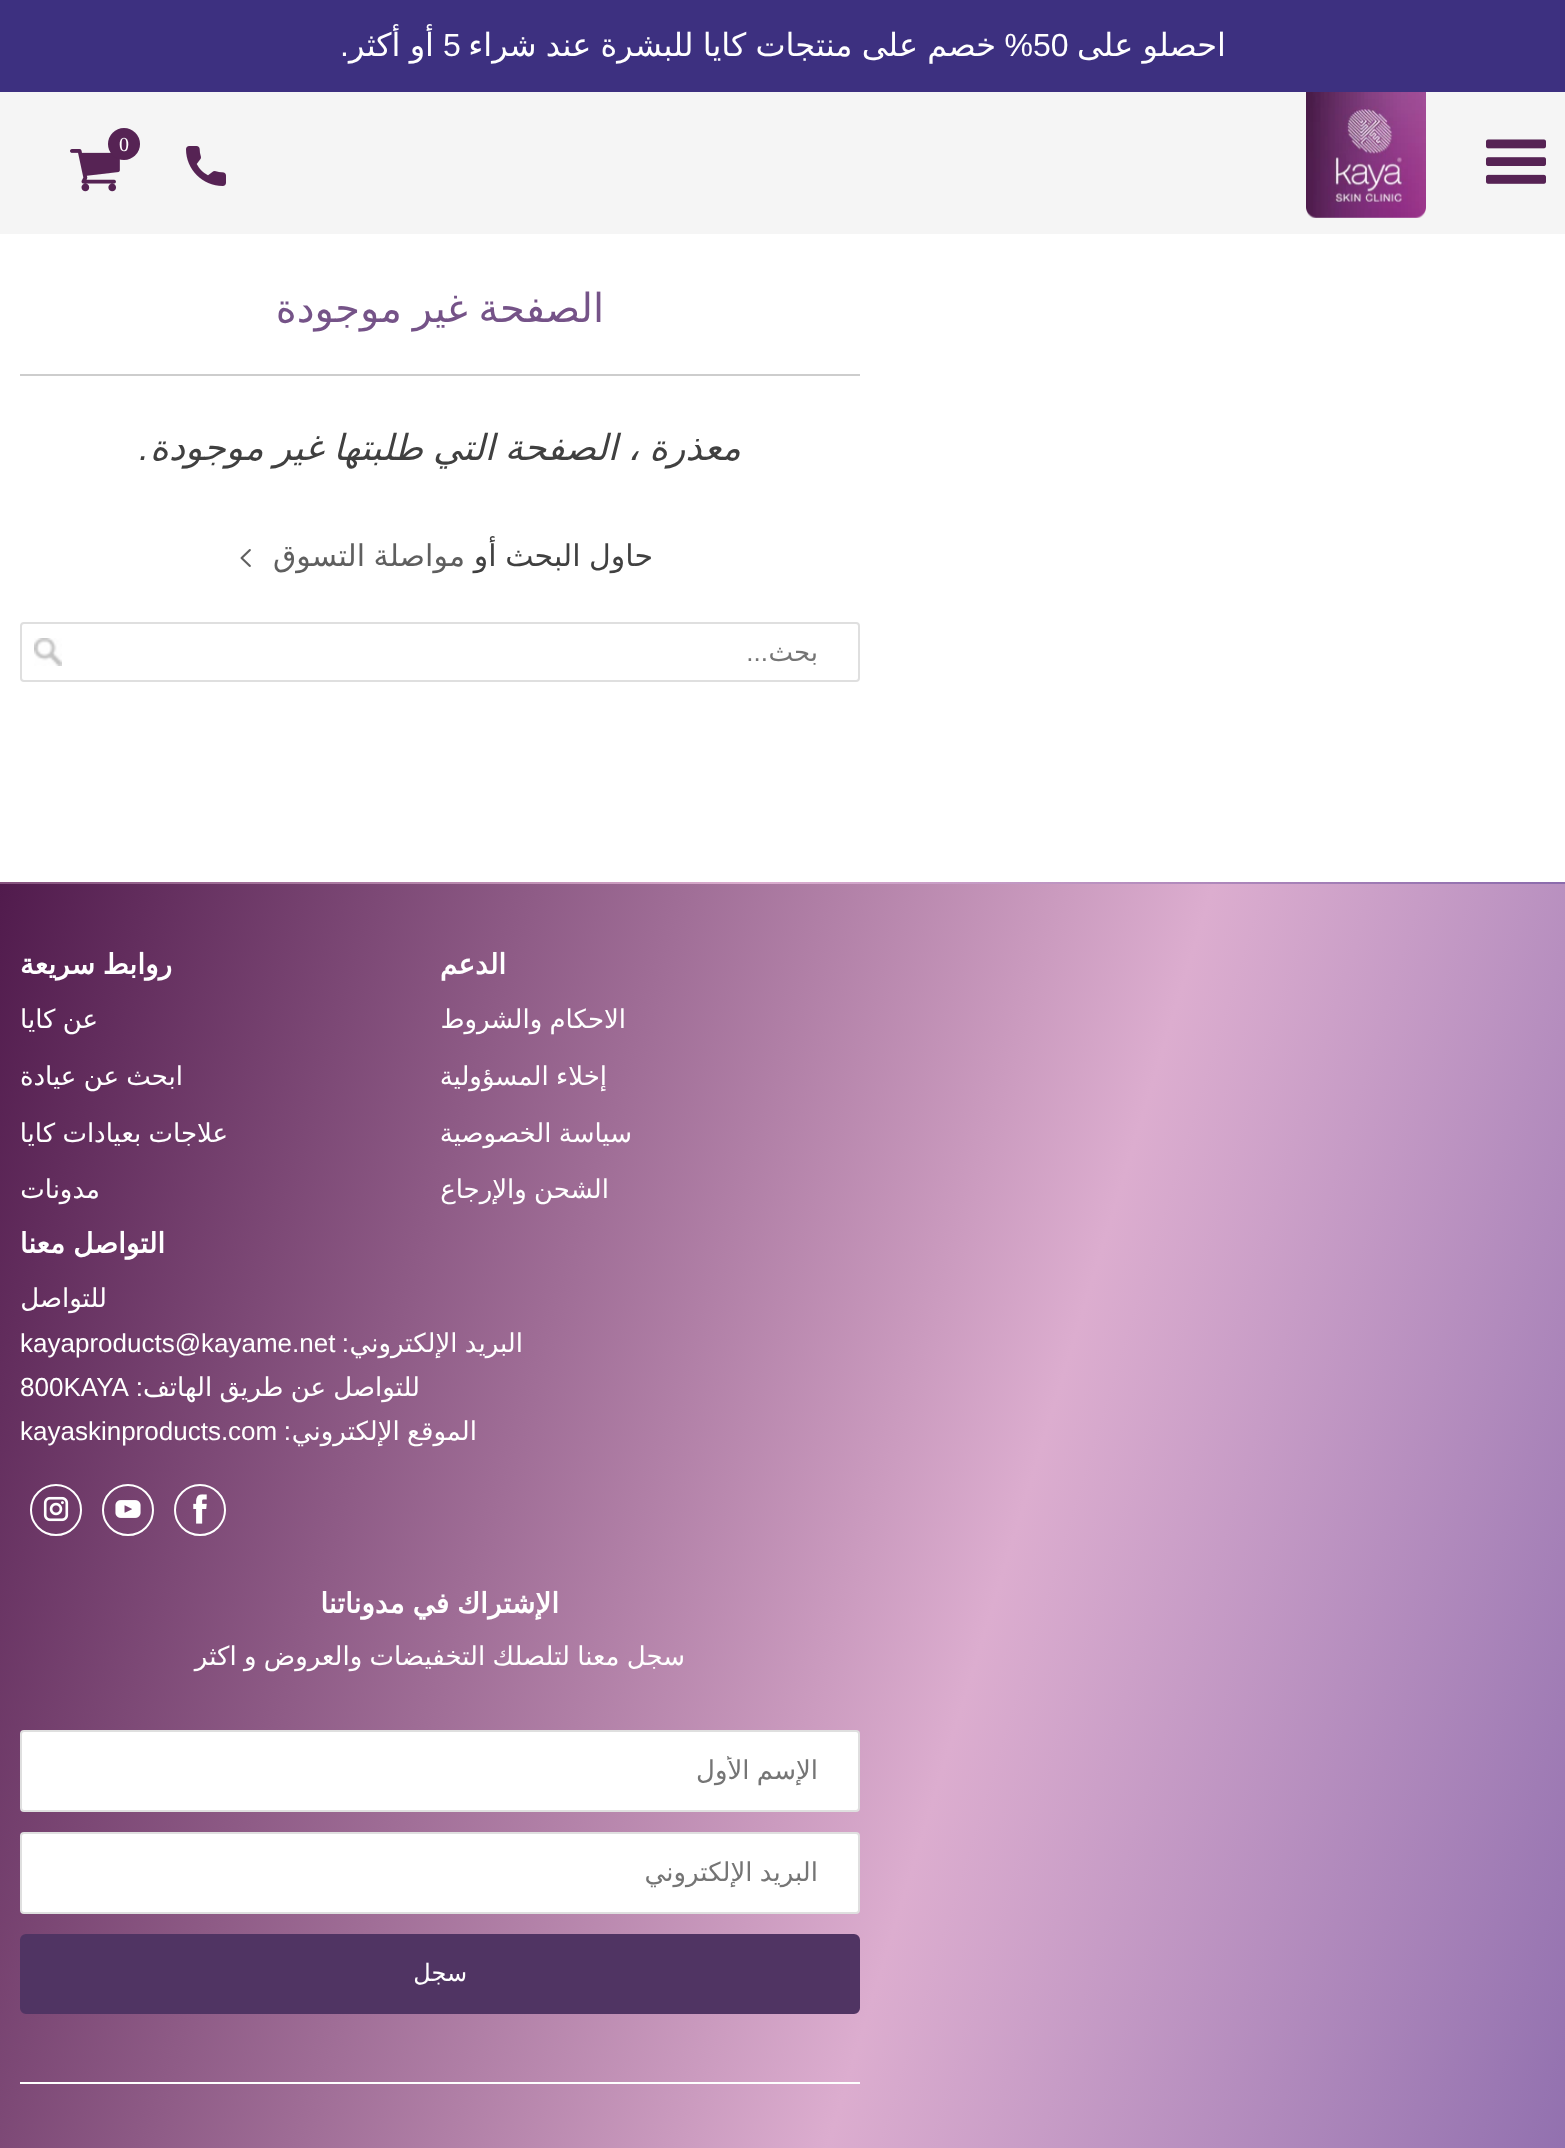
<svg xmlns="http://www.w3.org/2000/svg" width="1565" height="2148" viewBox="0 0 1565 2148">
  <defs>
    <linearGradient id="g1" gradientUnits="userSpaceOnUse" x1="-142" y1="-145" x2="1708" y2="421"><stop offset="0" stop-color="#511b4d"/><stop offset="0.6" stop-color="#dcadcf"/><stop offset="1" stop-color="#8b6bac"/></linearGradient>
    <linearGradient id="g2" gradientUnits="userSpaceOnUse" x1="-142" y1="1347" x2="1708" y2="1913"><stop offset="0" stop-color="#511b4d"/><stop offset="0.6" stop-color="#dcadcf"/><stop offset="1" stop-color="#8b6bac"/></linearGradient>
    <clipPath id="clip1"><rect x="62" y="1756" width="756" height="30"/></clipPath>
  </defs>
  <rect width="100%" height="100%" fill="#ffffff"/>
  <rect x="0" y="92" width="1565" height="142" fill="#f5f5f5"/>
  <rect x="0" y="0" width="1565" height="92" fill="#3d3080"/>
  <text x="1226" y="56" word-spacing="-1" font-family="DejaVu Sans" font-size="32" direction="rtl" fill="#ffffff">احصلو على</text>
  <text x="1033" y="56" font-family="Liberation Sans" font-size="32" fill="#ffffff">50</text>
  <text x="1033" y="56" font-family="Liberation Sans" font-size="32" direction="rtl" fill="#ffffff">%</text>
  <text x="996" y="56" word-spacing="-1" font-family="DejaVu Sans" font-size="32" direction="rtl" fill="#ffffff">خصم على منتجات كايا للبشرة عند شراء</text>
  <text x="443" y="56" font-family="Liberation Sans" font-size="32" fill="#ffffff">5</text>
  <text x="434" y="56" word-spacing="-1" font-family="DejaVu Sans" font-size="32" direction="rtl" fill="#ffffff">أو أكثر</text>
  <text x="349" y="56" font-family="Liberation Sans" font-size="32" direction="rtl" fill="#ffffff">.</text>
  <image x="1486" y="139" width="60" height="45" href="img1.png"/>
  <image x="1306" y="92" width="120" height="126" href="img2.png"/>
  <image x="70" y="149" width="50" height="43" href="img3.png"/>
  <circle cx="124" cy="144" r="16" fill="#562354"/>
  <text x="119" y="151" font-family="Liberation Serif" font-size="20" fill="#ffffff">0</text>
  <image x="186" y="146" width="40" height="40" href="img4.png"/>
  <rect x="20" y="374" width="840" height="2" fill="#cdcdcd"/>
  <text x="604" y="322" word-spacing="-2" font-family="DejaVu Sans" font-size="40" direction="rtl" fill="#755388">الصفحة غير موجودة</text>
  <text x="741" y="460" word-spacing="-1.5" font-family="DejaVu Sans" font-size="36" font-style="italic" direction="rtl" fill="#404040">معذرة ، الصفحة التي طلبتها غير موجودة</text>
  <text x="149" y="460" font-family="Liberation Sans" font-size="36" font-style="italic" direction="rtl" fill="#404040">.</text>
  <text x="653" y="566" word-spacing="-1" font-family="DejaVu Sans" font-size="30" direction="rtl" fill="#404040">حاول البحث أو</text>
  <text x="465" y="566" word-spacing="-1" font-family="DejaVu Sans" font-size="30" direction="rtl" fill="#5f5f5f">مواصلة التسوق</text>
  <image x="240" y="549" width="11" height="18" href="img5.png"/>
  <image x="34" y="638" width="28" height="28" href="img6.png"/>
  <rect x="21" y="623" width="838" height="58" rx="3" fill="none" stroke="#dfdfdf" stroke-width="2"/>
  <text x="818" y="661" font-family="DejaVu Sans" font-size="26" direction="rtl" fill="#757575">بحث</text>
  <text x="768" y="661" font-family="Liberation Sans" font-size="26" direction="rtl" fill="#757575">...</text>
  <rect x="0" y="882" width="1565" height="2" fill="url(#g1)"/>
  <rect x="0" y="884" width="1565" height="1264" fill="url(#g2)"/>
  <text x="506" y="974" font-family="DejaVu Sans" font-size="28" font-weight="bold" direction="rtl" fill="#ffffff">الدعم</text>
  <text x="626" y="1028" word-spacing="-1" font-family="DejaVu Sans" font-size="26" direction="rtl" fill="#ffffff">الاحكام والشروط</text>
  <text x="607" y="1085" word-spacing="-1" font-family="DejaVu Sans" font-size="26" direction="rtl" fill="#ffffff">إخلاء المسؤولية</text>
  <text x="632" y="1142" word-spacing="-1" font-family="DejaVu Sans" font-size="26" direction="rtl" fill="#ffffff">سياسة الخصوصية</text>
  <text x="609" y="1198" word-spacing="-1" font-family="DejaVu Sans" font-size="26" direction="rtl" fill="#ffffff">الشحن والإرجاع</text>
  <text x="172" y="974" word-spacing="-1" font-family="DejaVu Sans" font-size="28" font-weight="bold" direction="rtl" fill="#ffffff">روابط سريعة</text>
  <text x="98" y="1028" word-spacing="-1" font-family="DejaVu Sans" font-size="26" direction="rtl" fill="#ffffff">عن كايا</text>
  <text x="183" y="1085" word-spacing="-1" font-family="DejaVu Sans" font-size="26" direction="rtl" fill="#ffffff">ابحث عن عيادة</text>
  <text x="228" y="1142" word-spacing="-1" font-family="DejaVu Sans" font-size="26" direction="rtl" fill="#ffffff">علاجات بعيادات كايا</text>
  <text x="100" y="1198" font-family="DejaVu Sans" font-size="26" direction="rtl" fill="#ffffff">مدونات</text>
  <text x="165" y="1253" word-spacing="-1" font-family="DejaVu Sans" font-size="28" font-weight="bold" direction="rtl" fill="#ffffff">التواصل معنا</text>
  <text x="107" y="1307" font-family="DejaVu Sans" font-size="26" direction="rtl" fill="#ffffff">للتواصل</text>
  <text x="523" y="1352" word-spacing="-1" font-family="DejaVu Sans" font-size="26" direction="rtl" fill="#ffffff">البريد الإلكتروني</text>
  <text x="349" y="1352" font-family="Liberation Sans" font-size="26" direction="rtl" fill="#ffffff">:</text>
  <text x="20" y="1352" font-family="Liberation Sans" font-size="26" fill="#ffffff">kayaproducts@kayame.net</text>
  <text x="420" y="1396" word-spacing="-1" font-family="DejaVu Sans" font-size="26" direction="rtl" fill="#ffffff">للتواصل عن طريق الهاتف</text>
  <text x="143" y="1396" font-family="Liberation Sans" font-size="26" direction="rtl" fill="#ffffff">:</text>
  <text x="20" y="1396" font-family="Liberation Sans" font-size="26" fill="#ffffff">800KAYA</text>
  <text x="477" y="1440" word-spacing="-1" font-family="DejaVu Sans" font-size="26" direction="rtl" fill="#ffffff">الموقع الإلكتروني</text>
  <text x="291" y="1440" font-family="Liberation Sans" font-size="26" direction="rtl" fill="#ffffff">:</text>
  <text x="20" y="1440" font-family="Liberation Sans" font-size="26" fill="#ffffff">kayaskinproducts.com</text>
  <circle cx="200" cy="1510" r="25" fill="none" stroke="#ffffff" stroke-width="2"/>
  <image x="193" y="1494" width="14" height="30" href="img7.png"/>
  <circle cx="128" cy="1510" r="25" fill="none" stroke="#ffffff" stroke-width="2"/>
  <image x="115" y="1500" width="26" height="18" href="img8.png"/>
  <circle cx="56" cy="1510" r="25" fill="none" stroke="#ffffff" stroke-width="2"/>
  <image x="43" y="1496" width="26" height="26" href="img9.png"/>
  <text x="559" y="1613" word-spacing="-1" font-family="DejaVu Sans" font-size="28" font-weight="bold" direction="rtl" fill="#ffffff">الإشتراك في مدوناتنا</text>
  <text x="685" y="1665" word-spacing="-1" font-family="DejaVu Sans" font-size="26" direction="rtl" fill="#ffffff">سجل معنا لتلصلك التخفيضات والعروض و اكثر</text>
  <rect x="21" y="1731" width="838" height="80" rx="3" fill="#ffffff" stroke="#dfdfdf" stroke-width="2"/>
  <g clip-path="url(#clip1)">
    <text x="818" y="1779" word-spacing="-1" font-family="DejaVu Sans" font-size="26" direction="rtl" fill="#757575">الإسم الأول</text>
  </g>
  <rect x="21" y="1833" width="838" height="80" rx="3" fill="#ffffff" stroke="#dfdfdf" stroke-width="2"/>
  <text x="818" y="1881" word-spacing="-1" font-family="DejaVu Sans" font-size="26" direction="rtl" fill="#757575">البريد الإلكتروني</text>
  <rect x="21" y="1935" width="838" height="78" rx="5" fill="#503463" stroke="#503463" stroke-width="2"/>
  <text x="467" y="1981" font-family="DejaVu Sans" font-size="24" direction="rtl" fill="#ffffff">سجل</text>
  <rect x="20" y="2082" width="840" height="2" fill="#ffffff"/>
</svg>
